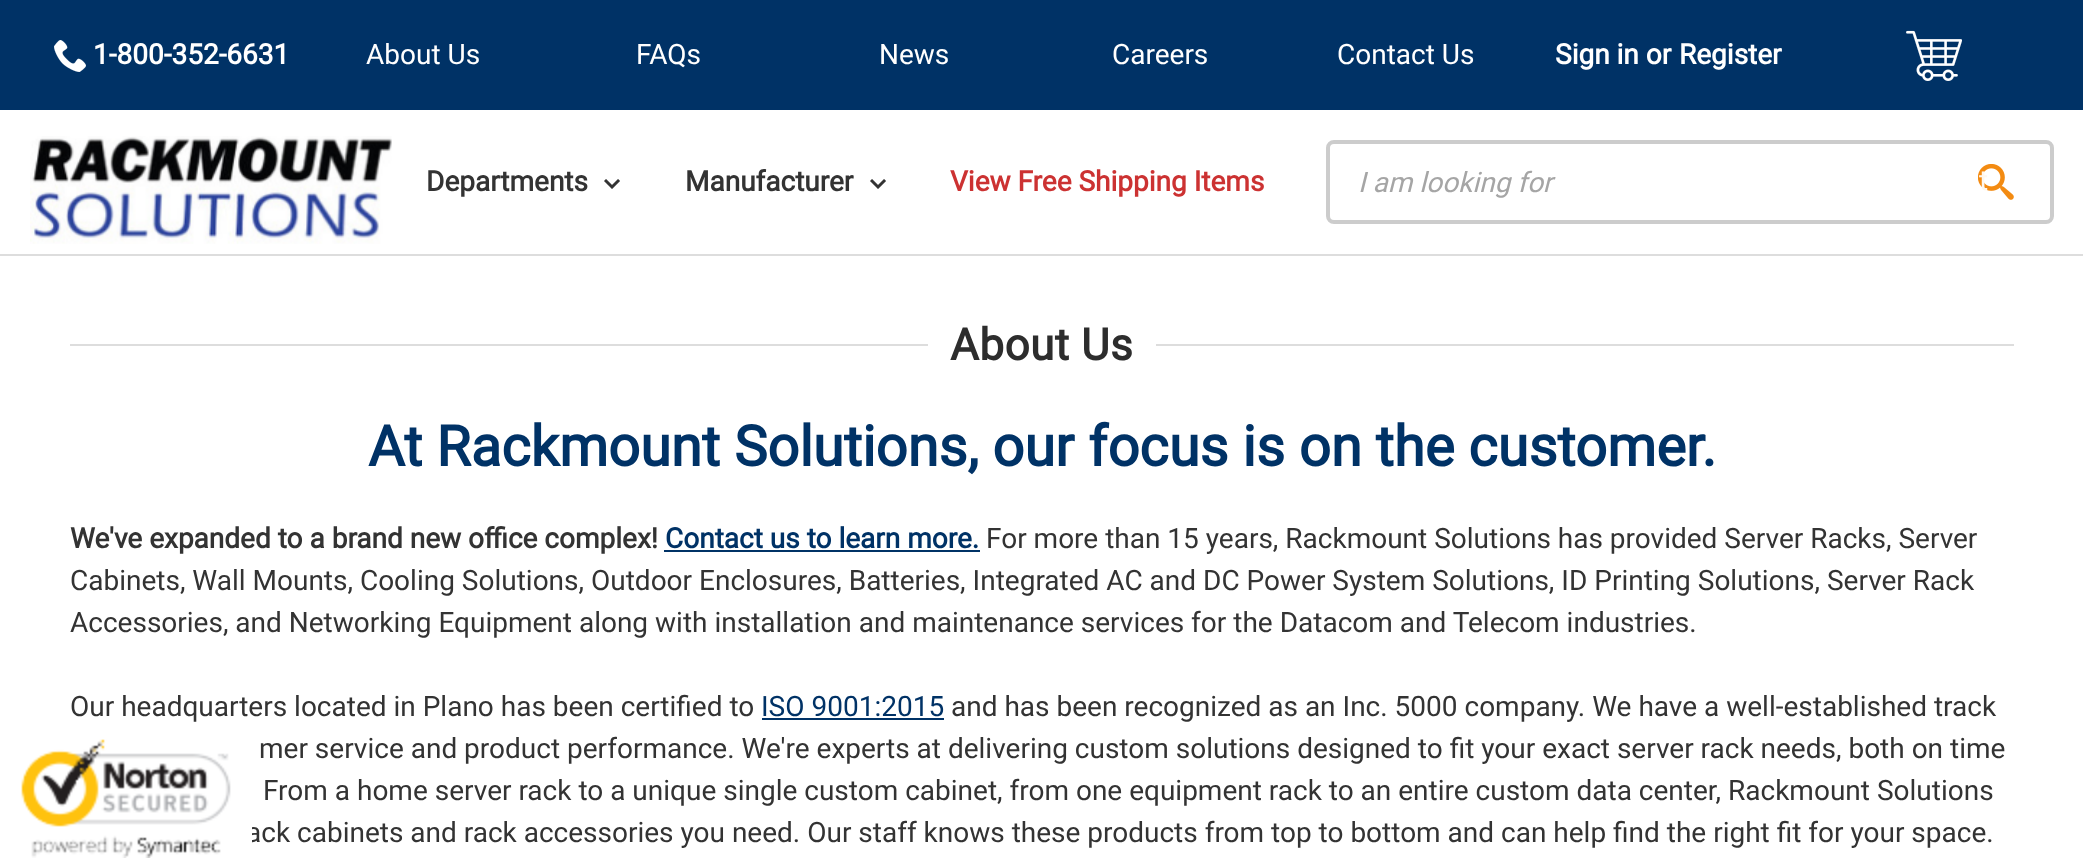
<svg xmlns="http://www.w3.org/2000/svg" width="2083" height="858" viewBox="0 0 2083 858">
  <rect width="100%" height="100%" fill="#ffffff"/>
  <rect x="0" y="254" width="2083" height="2" fill="#dddddd"/>
  <rect x="0" y="0" width="2083" height="110" fill="#003266"/>
  <image x="54" y="40" width="32" height="32" href="img1.png"/>
  <text x="93" y="64" font-family="Roboto" font-size="28" font-weight="bold" fill="#ffffff">1-800-352-6631</text>
  <text x="366" y="64" font-family="Roboto" font-size="28" fill="#ffffff">About Us</text>
  <text x="636" y="64" font-family="Roboto" font-size="28" fill="#ffffff">FAQs</text>
  <text x="879" y="64" font-family="Roboto" font-size="28" fill="#ffffff">News</text>
  <text x="1112" y="64" font-family="Roboto" font-size="28" fill="#ffffff">Careers</text>
  <text x="1337" y="64" font-family="Roboto" font-size="28" fill="#ffffff">Contact Us</text>
  <text x="1555" y="64" font-family="Roboto" font-size="28" font-weight="bold" fill="#ffffff">Sign in or</text>
  <text x="1679" y="64" font-family="Roboto" font-size="28" font-weight="bold" fill="#ffffff">Register</text>
  <image x="1906" y="30" width="56" height="51" href="img2.png"/>
  <image x="30" y="136" width="362" height="108" href="img3.png"/>
  <text x="426" y="191" font-family="Roboto" font-size="28" font-weight="bold" fill="#333333">Departments</text>
  <image x="604" y="179" width="16" height="10" href="img4.png"/>
  <text x="685" y="191" font-family="Roboto" font-size="28" font-weight="bold" fill="#333333">Manufacturer</text>
  <image x="870" y="179" width="16" height="10" href="img4.png"/>
  <text x="950" y="191" font-family="Roboto" font-size="28" font-weight="bold" fill="#cc3232">View Free Shipping Items</text>
  <rect x="1328" y="142" width="724" height="80" rx="6" fill="none" stroke="#cccccc" stroke-width="4"/>
  <text x="1358" y="192" font-family="Roboto" font-size="28" font-style="italic" fill="#a5a5a5">I am looking for</text>
  <image x="1978" y="164" width="36" height="36" href="img5.png"/>
  <text x="1979" y="190" font-family="Roboto" font-size="28" fill="#fef7ee">t</text>
  <rect x="70" y="344" width="858" height="2" fill="#dddddd"/>
  <text x="950" y="360" font-family="Roboto" font-size="44" font-weight="bold" letter-spacing="0.5" fill="#2d2d2d">About Us</text>
  <rect x="1156" y="344" width="858" height="2" fill="#dddddd"/>
  <text x="368" y="466" font-family="Roboto" font-size="56" font-weight="bold" fill="#003266">At Rackmount Solutions, our focus is on the customer.</text>
  <text x="70" y="548" font-family="Roboto" font-size="28" font-weight="bold" fill="#333333">We've expanded to a brand new office complex!</text>
  <text x="665" y="548" font-family="Roboto" font-size="28" font-weight="bold" fill="#003266">Contact us to learn more.</text>
  <rect x="664" y="550" width="316" height="2" fill="#003266"/>
  <text x="986" y="548" font-family="Roboto" font-size="28" fill="#333333">For more than 15 years, Rackmount Solutions has provided Server Racks, Server</text>
  <text x="70" y="590" font-family="Roboto" font-size="28" fill="#333333">Cabinets, Wall Mounts, Cooling Solutions, Outdoor Enclosures, Batteries, Integrated AC and DC Power System Solutions, ID Printing Solutions, Server Rack</text>
  <text x="70" y="632" font-family="Roboto" font-size="28" fill="#333333">Accessories, and Networking Equipment along with installation and maintenance services for the Datacom and Telecom industries.</text>
  <text x="70" y="716" font-family="Roboto" font-size="28" fill="#333333">Our headquarters located in Plano has been certified to</text>
  <text x="761" y="716" font-family="Roboto" font-size="28" fill="#003266">ISO 9001:2015</text>
  <rect x="762" y="718" width="182" height="2" fill="#003266"/>
  <text x="951" y="716" font-family="Roboto" font-size="28" fill="#333333">and has been recognized as an Inc. 5000 company. We have a well-established track</text>
  <text x="259" y="758" font-family="Roboto" font-size="28" fill="#333333">mer service and product performance. We're experts at delivering custom solutions designed to fit your exact server rack needs, both on time</text>
  <text x="263" y="800" font-family="Roboto" font-size="28" fill="#333333">From a home server rack to a unique single custom cabinet, from one equipment rack to an entire custom data center, Rackmount Solutions</text>
  <text x="246" y="842" font-family="Roboto" font-size="28" fill="#333333">ack cabinets and rack accessories you need. Our staff knows these products from top to bottom and can help find the right fit for your space.</text>
  <rect x="247" y="827" width="5" height="16" fill="#ffffff"/>
  <image x="21" y="739" width="210" height="119" href="img6.png"/>
</svg>
